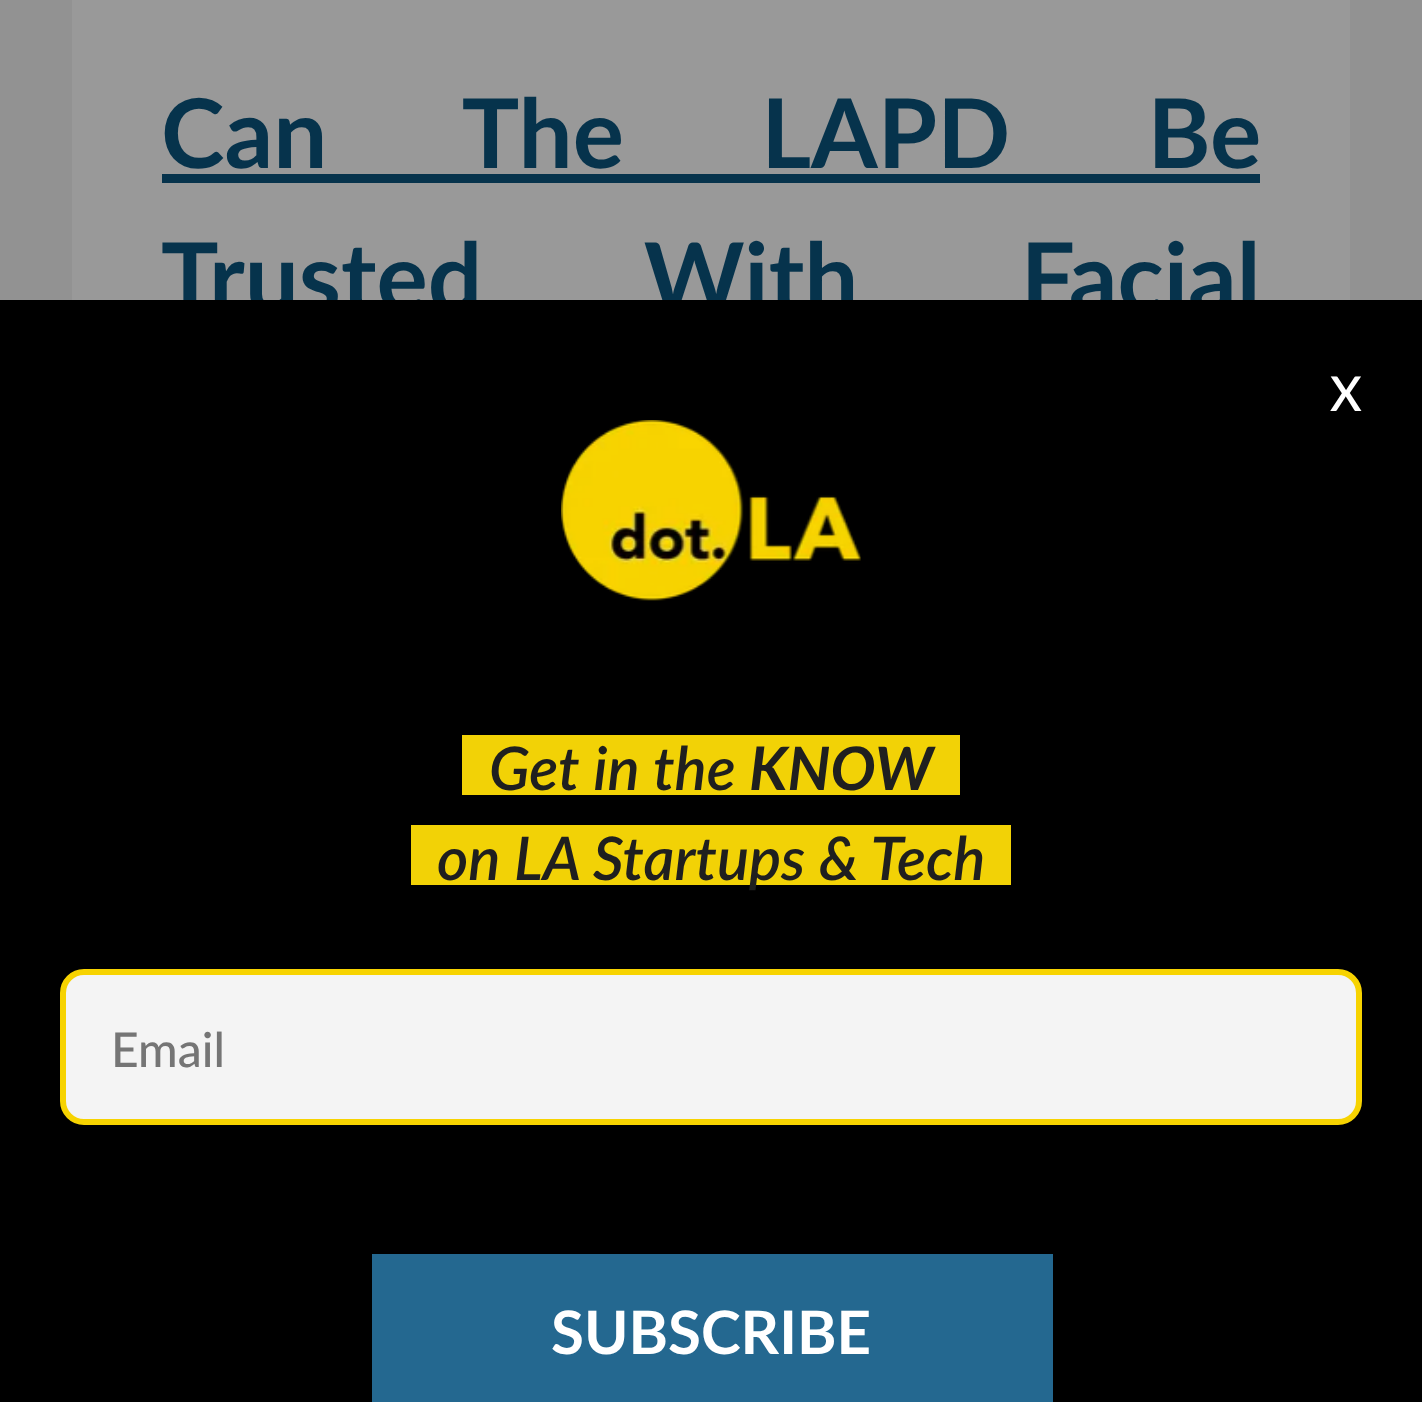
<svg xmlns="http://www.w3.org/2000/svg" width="1422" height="1402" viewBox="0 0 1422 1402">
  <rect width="100%" height="100%" fill="#929292"/>
  <rect x="72" y="0" width="1278" height="300" fill="#999999"/>
  <text x="161" y="168" word-spacing="114" font-family="Lato" font-size="96" font-weight="bold" fill="#06334c">Can The LAPD Be</text>
  <rect x="162" y="174" width="1098" height="9" fill="#06334c"/>
  <text x="161" y="312" word-spacing="139" font-family="Lato" font-size="96" font-weight="bold" fill="#06334c">Trusted With Facial</text>
  <rect x="0" y="300" width="1422" height="1102" fill="#000000"/>
  <text x="1330" y="411" font-family="Lato" font-size="48" font-weight="600" fill="#ffffff">X</text>
  <image x="561" y="420" width="300" height="181" href="img1.png"/>
  <rect x="462" y="735" width="498" height="60" fill="#f2d206"/>
  <text x="489" y="790" font-family="Lato" font-size="60" font-weight="600" font-style="italic" fill="#1f1f1f">Get in the</text>
  <text x="749" y="790" font-family="Lato" font-size="60" font-weight="bold" font-style="italic" fill="#1f1f1f">KNOW</text>
  <rect x="411" y="825" width="600" height="60" fill="#f2d206"/>
  <text x="437" y="880" font-family="Lato" font-size="60" font-weight="600" font-style="italic" fill="#1f1f1f">on LA Startups &amp; Tech</text>
  <rect x="63" y="972" width="1296" height="150" rx="21" fill="#f4f4f4" stroke="#f7d300" stroke-width="6"/>
  <text x="111" y="1067" font-family="Lato" font-size="48" font-weight="500" fill="#757575">Email</text>
  <rect x="372" y="1254" width="681" height="148" fill="#246890"/>
  <text x="551" y="1354" font-family="Lato" font-size="60" font-weight="bold" fill="#ffffff">SUBSCRIBE</text>
</svg>
